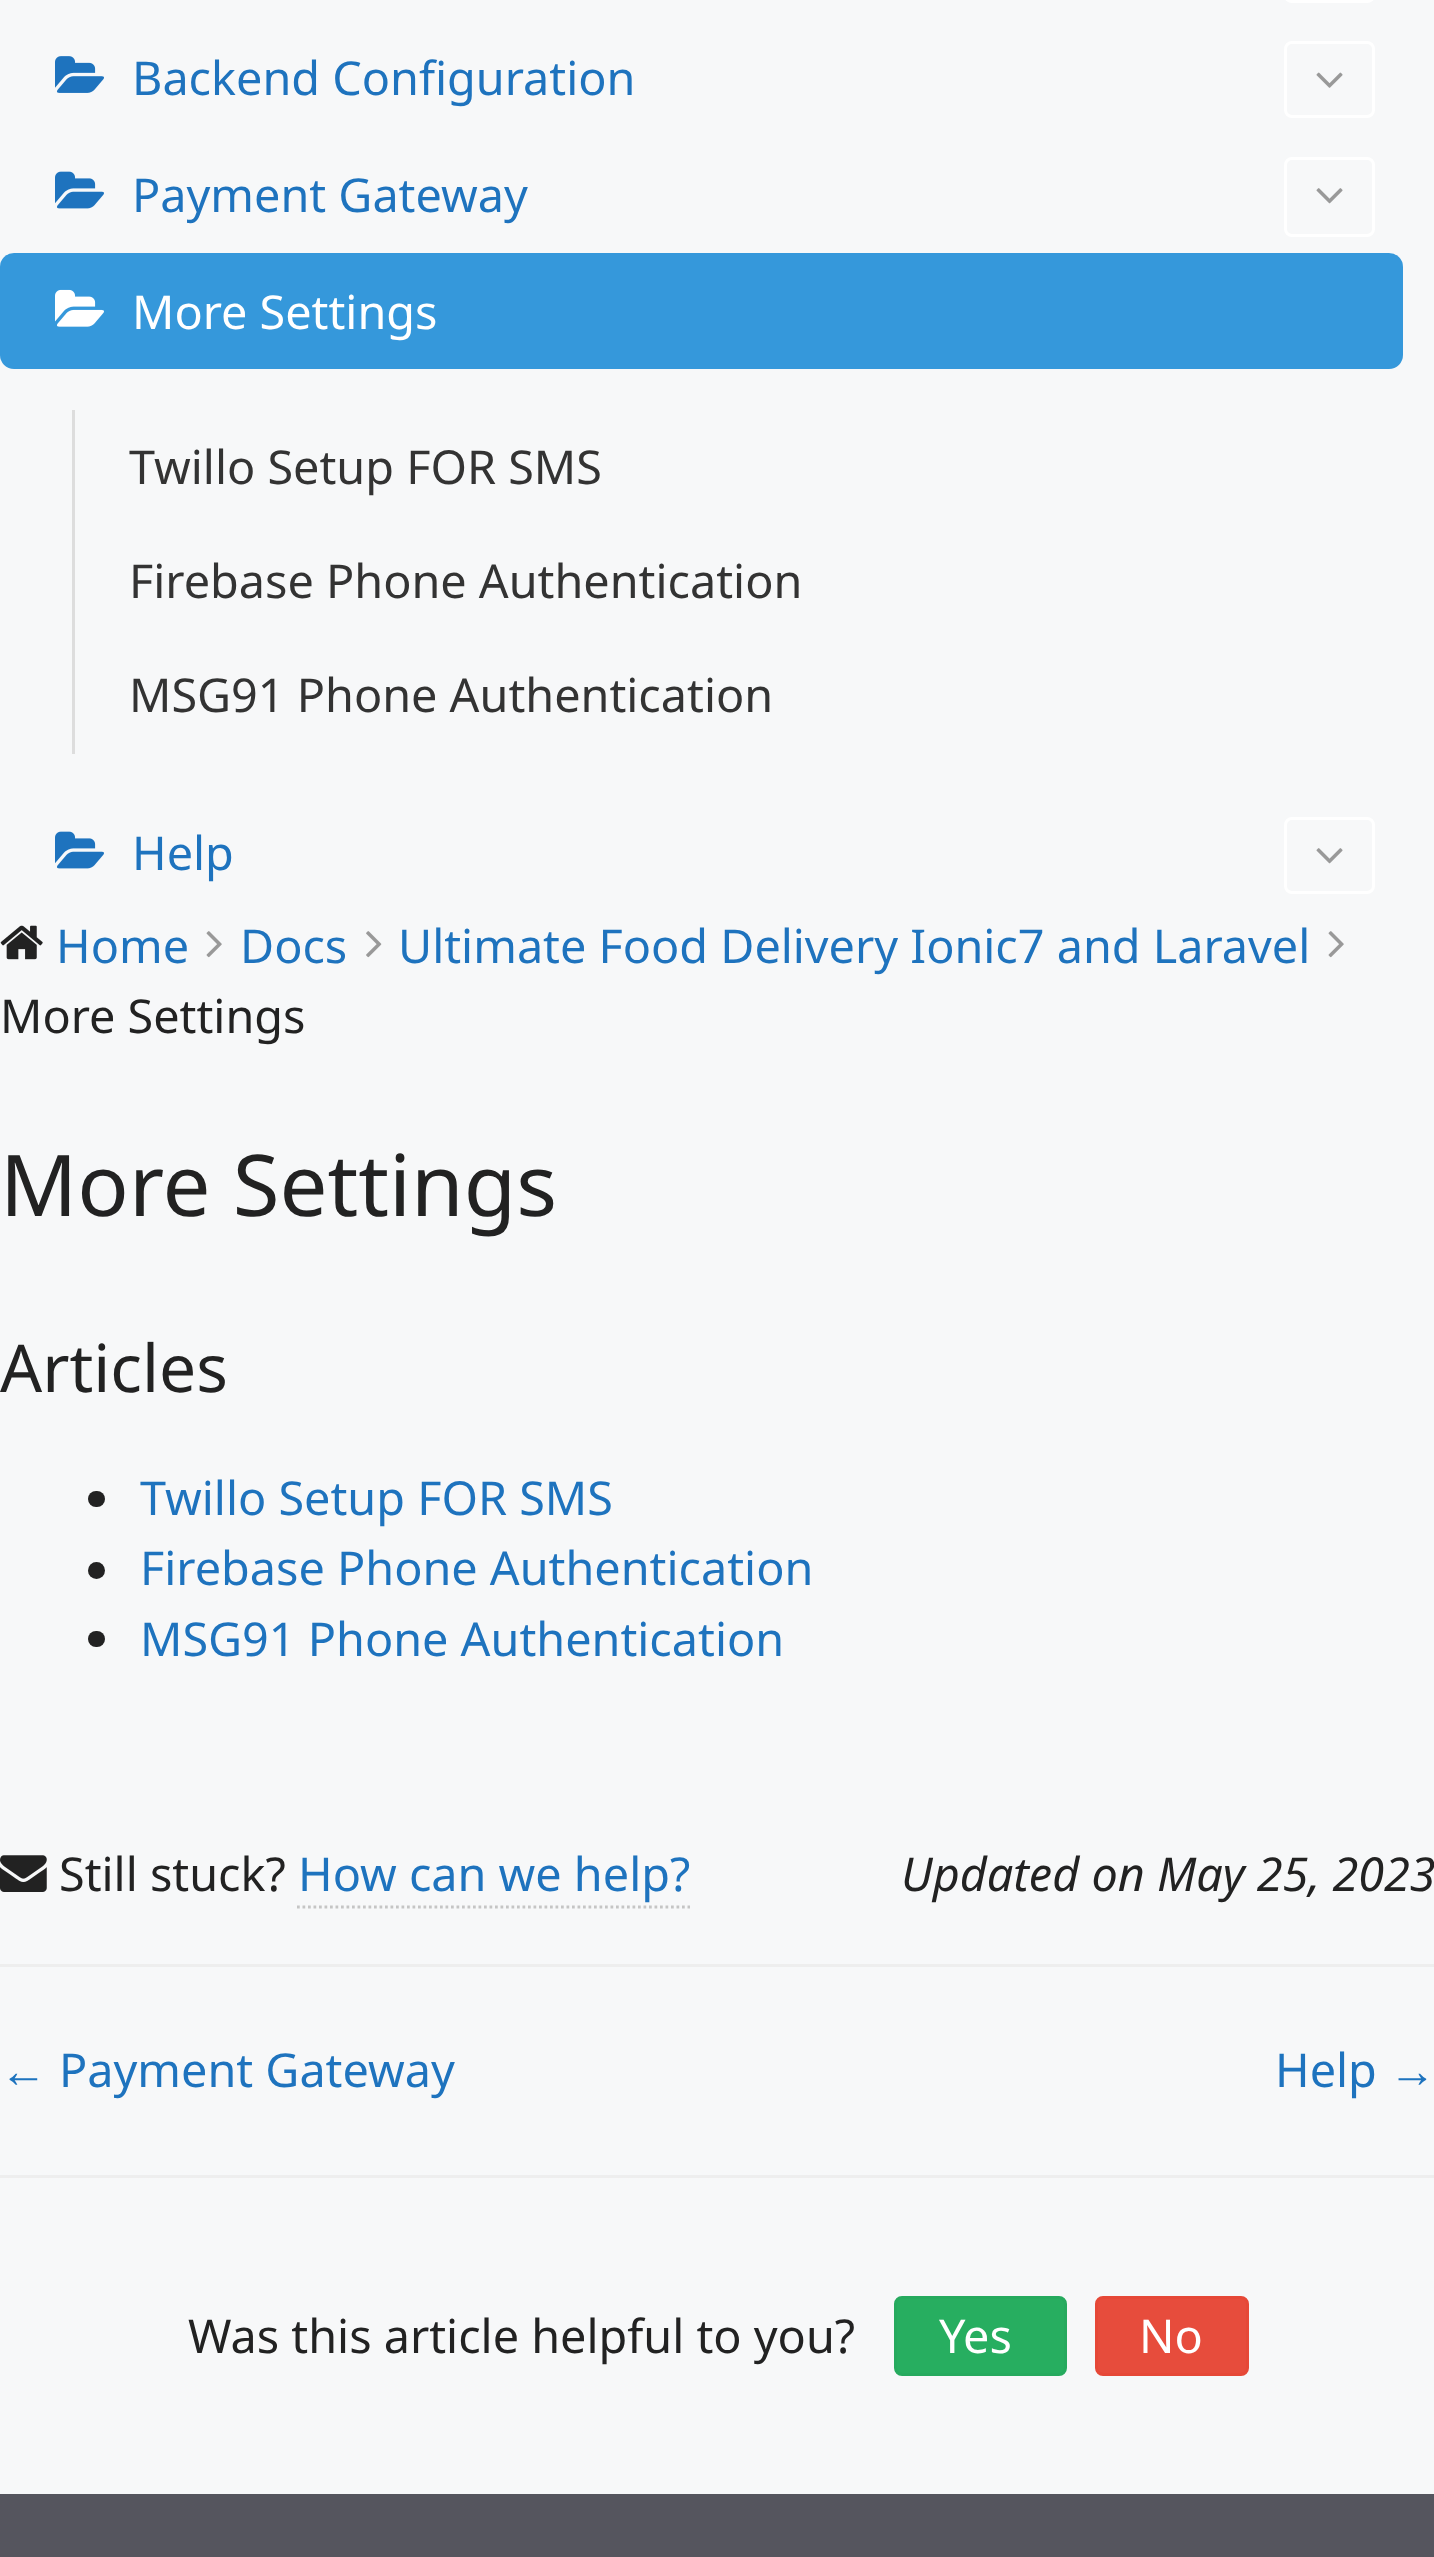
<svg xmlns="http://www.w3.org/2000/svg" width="1434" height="2557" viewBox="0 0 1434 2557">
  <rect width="100%" height="100%" fill="#f7f8f9"/>
  <rect x="1285.5" y="-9.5" width="88" height="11" rx="6.5" fill="none" stroke="#ffffff" stroke-width="3"/>
  <image x="55" y="56" width="49" height="37" href="img1.png"/>
  <text x="132" y="95" font-family="Noto Sans" font-size="46.75" fill="#1e73be">Backend Configuration</text>
  <rect x="1285.5" y="42.5" width="88" height="74" rx="6.5" fill="none" stroke="#ffffff" stroke-width="3"/>
  <image x="1316" y="72" width="27" height="16" href="img2.png"/>
  <image x="55" y="171" width="49" height="38" href="img3.png"/>
  <text x="132" y="212" font-family="Noto Sans" font-size="46.75" fill="#1e73be">Payment Gateway</text>
  <rect x="1285.5" y="158.5" width="88" height="77" rx="6.5" fill="none" stroke="#ffffff" stroke-width="3"/>
  <image x="1316" y="188" width="27" height="16" href="img4.png"/>
  <rect x="0" y="253" width="1403" height="116" rx="14" fill="#3598db"/>
  <image x="55" y="289" width="49" height="38" href="img5.png"/>
  <text x="132" y="329" font-family="Noto Sans" font-size="46.75" fill="#ffffff">More Settings</text>
  <rect x="72" y="410" width="3" height="344" fill="#dddddd"/>
  <text x="129" y="484" font-family="Noto Sans" font-size="46.75" fill="#333333">Twillo Setup FOR SMS</text>
  <text x="129" y="598" font-family="Noto Sans" font-size="46.75" fill="#333333">Firebase Phone Authentication</text>
  <text x="129" y="712" font-family="Noto Sans" font-size="46.75" fill="#333333">MSG91 Phone Authentication</text>
  <image x="55" y="831" width="49" height="38" href="img3.png"/>
  <text x="132" y="870" font-family="Noto Sans" font-size="46.75" fill="#1e73be">Help</text>
  <rect x="1285.5" y="818.5" width="88" height="74" rx="6.5" fill="none" stroke="#ffffff" stroke-width="3"/>
  <image x="1316" y="848" width="27" height="16" href="img4.png"/>
  <image x="0" y="925" width="43" height="35" href="img6.png"/>
  <text x="56" y="963" font-family="Noto Sans" font-size="46.75" fill="#1e73be">Home</text>
  <image x="206" y="931" width="16" height="27" href="img7.png"/>
  <text x="240" y="963" font-family="Noto Sans" font-size="46.75" fill="#1e73be">Docs</text>
  <image x="366" y="931" width="16" height="27" href="img8.png"/>
  <text x="398" y="963" font-family="Noto Sans" font-size="46.75" fill="#1e73be">Ultimate Food Delivery Ionic7 and Laravel</text>
  <image x="1328" y="931" width="16" height="27" href="img7.png"/>
  <text x="0" y="1033" font-family="Noto Sans" font-size="46.75" fill="#222222">More Settings</text>
  <text x="0" y="1216" font-family="Noto Sans" font-size="85.25" fill="#222222">More Settings</text>
  <text x="0" y="1392" font-family="Noto Sans" font-size="66" fill="#222222">Articles</text>
  <rect x="88" y="1491" width="17" height="16" rx="8" fill="#222222"/>
  <text x="140" y="1515" font-family="Noto Sans" font-size="46.75" fill="#1e73be">Twillo Setup FOR SMS</text>
  <circle cx="96.5" cy="1570.5" r="8.5" fill="#222222"/>
  <text x="140" y="1585" font-family="Noto Sans" font-size="46.75" fill="#1e73be">Firebase Phone Authentication</text>
  <rect x="88" y="1631" width="17" height="16" rx="8" fill="#222222"/>
  <text x="140" y="1656" font-family="Noto Sans" font-size="46.75" fill="#1e73be">MSG91 Phone Authentication</text>
  <image x="0" y="1855" width="47" height="37" href="img9.png"/>
  <text x="59" y="1891" font-family="Noto Sans" font-size="46.75" fill="#222222">Still stuck?</text>
  <text x="298" y="1891" font-family="Noto Sans" font-size="46.75" fill="#1e73be">How can we help?</text>
  <path d="M297 1907H690" fill="none" stroke="#c5c5c5" stroke-width="2.8" stroke-dasharray="2.75 2.75"/>
  <text x="901" y="1891" font-family="Noto Sans" font-size="46.75" font-style="italic" fill="#222222">Updated on May 25, 2023</text>
  <rect x="0" y="1964" width="1434" height="3" fill="#eeeeee"/>
  <rect x="0" y="2175" width="1434" height="3" fill="#eeeeee"/>
  <text x="0" y="2087" font-family="Liberation Sans" font-size="46.75" fill="#1e73be">←</text>
  <text x="59" y="2087" font-family="Noto Sans" font-size="46.75" fill="#1e73be">Payment Gateway</text>
  <text x="1275" y="2087" font-family="Noto Sans" font-size="46.75" fill="#1e73be">Help</text>
  <text x="1389" y="2087" font-family="Liberation Sans" font-size="46.75" fill="#1e73be">→</text>
  <text x="188" y="2353" font-family="Noto Sans" font-size="46.75" fill="#222222">Was this article helpful to you?</text>
  <rect x="895.5" y="2297.5" width="170" height="77" rx="6.5" fill="#27ae60" stroke="#26aa5e" stroke-width="3"/>
  <text x="939" y="2353" font-family="Noto Sans" font-size="46.75" fill="#ffffff">Yes</text>
  <rect x="1096.5" y="2297.5" width="151" height="77" rx="6.5" fill="#e74c3c" stroke="#e64837" stroke-width="3"/>
  <text x="1139" y="2353" font-family="Noto Sans" font-size="46.75" fill="#ffffff">No</text>
  <rect x="0" y="2494" width="1434" height="63" fill="#55555e"/>
</svg>
